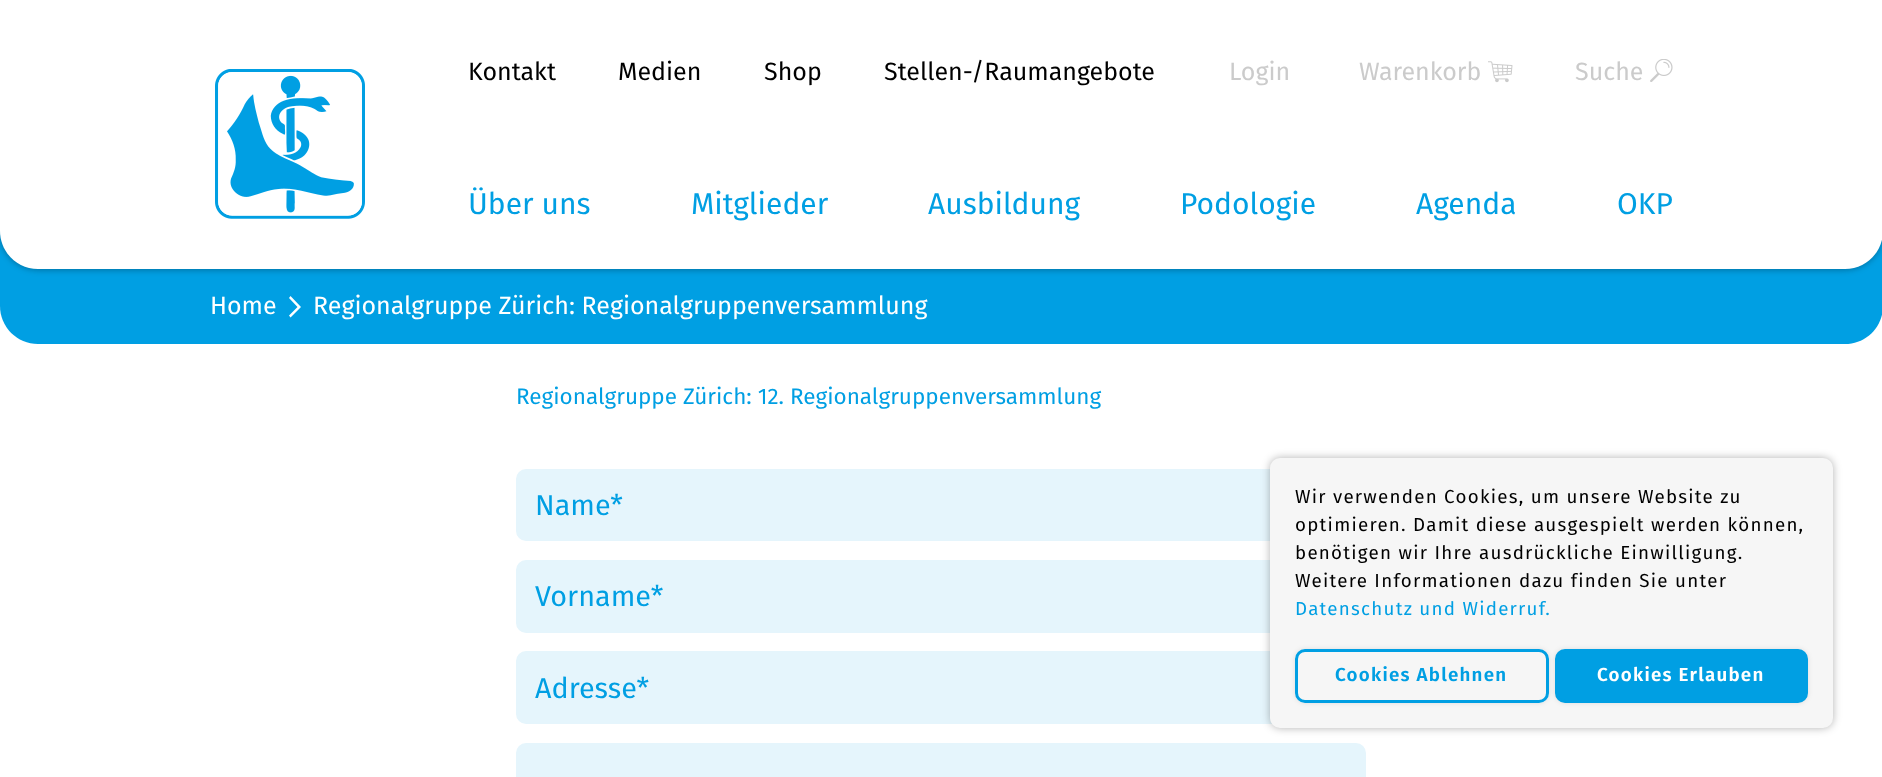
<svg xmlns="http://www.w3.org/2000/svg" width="1882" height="777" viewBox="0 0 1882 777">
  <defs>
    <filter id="blur1" x="-50%" y="-200%" width="200%" height="500%"><feGaussianBlur stdDeviation="3"/></filter>
    <filter id="blur2" x="-50%" y="-200%" width="200%" height="500%"><feGaussianBlur stdDeviation="4"/></filter>
    <clipPath id="clip1"><path d="M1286 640H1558V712H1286ZM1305 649H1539C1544.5 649 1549 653.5 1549 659V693C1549 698.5 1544.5 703 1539 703H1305C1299.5 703 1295 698.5 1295 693V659C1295 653.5 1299.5 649 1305 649Z" clip-rule="evenodd"/></clipPath>
    <filter id="blur3" x="-50%" y="-200%" width="200%" height="500%"><feGaussianBlur stdDeviation="2.5"/></filter>
  </defs>
  <rect width="100%" height="100%" fill="#ffffff"/>
  <path d="M0 231H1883V306C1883 327 1866 344 1845 344H38C17 344 0 327 0 306Z" fill="#009fe3"/>
  <rect x="0" y="1" width="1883" height="269" rx="38" fill="#000000" fill-opacity="0.3" filter="url(#blur1)"/>
  <path d="M0 0H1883V231C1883 252 1866 269 1845 269H38C17 269 0 252 0 231Z" fill="#ffffff"/>
  <image x="215" y="69" width="150" height="150" href="img1.png"/>
  <text x="468" y="80" font-family="Fira Sans" font-size="25" fill="#000000">Kontakt</text>
  <text x="618" y="80" font-family="Fira Sans" font-size="25" fill="#000000">Medien</text>
  <text x="764" y="80" font-family="Fira Sans" font-size="25" fill="#000000">Shop</text>
  <text x="884" y="80" font-family="Fira Sans" font-size="25" fill="#000000">Stellen-/Raumangebote</text>
  <text x="1229" y="80" font-family="Fira Sans" font-size="25" fill="#cbcbcb">Login</text>
  <text x="1359" y="80" font-family="Fira Sans" font-size="25" fill="#cbcbcb">Warenkorb</text>
  <image x="1488" y="61" width="25" height="22" href="img2.png"/>
  <text x="1575" y="80" font-family="Fira Sans" font-size="25" fill="#cbcbcb">Suche</text>
  <image x="1650" y="59" width="23" height="23" href="img3.png"/>
  <text x="468" y="214" font-family="Fira Sans" font-size="30" fill="#009fe3">Über uns</text>
  <text x="691" y="214" font-family="Fira Sans" font-size="30" fill="#009fe3">Mitglieder</text>
  <text x="928" y="214" font-family="Fira Sans" font-size="30" fill="#009fe3">Ausbildung</text>
  <text x="1180" y="214" font-family="Fira Sans" font-size="30" fill="#009fe3">Podologie</text>
  <text x="1416" y="214" font-family="Fira Sans" font-size="30" fill="#009fe3">Agenda</text>
  <text x="1617" y="214" font-family="Fira Sans" font-size="30" fill="#009fe3">OKP</text>
  <text x="210" y="314" font-family="Fira Sans" font-size="25" fill="#ffffff">Home</text>
  <text x="313" y="314" font-family="Fira Sans" font-size="25" fill="#ffffff">Regionalgruppe Zürich: Regionalgruppenversammlung</text>
  <path d="M290.5 317.5L289 315.5L297.5 307L289 298L290.5 296L301 307Z" fill="#ffffff"/>
  <text x="516" y="404" font-family="Fira Sans" font-size="22.5" fill="#009fe3">Regionalgruppe Zürich: 12. Regionalgruppenversammlung</text>
  <rect x="516" y="469" width="850" height="72" rx="10" fill="#e5f5fc"/>
  <text x="535" y="515" font-family="Fira Sans" font-size="28.75" fill="#009fe3">Name*</text>
  <rect x="516" y="560" width="850" height="73" rx="10" fill="#e5f5fc"/>
  <text x="535" y="606" font-family="Fira Sans" font-size="28.75" fill="#009fe3">Vorname*</text>
  <rect x="516" y="651" width="850" height="73" rx="10" fill="#e5f5fc"/>
  <text x="535" y="698" font-family="Fira Sans" font-size="28.75" fill="#009fe3">Adresse*</text>
  <rect x="516" y="743" width="850" height="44" rx="10" fill="#e5f5fc"/>
  <rect x="1270" y="458" width="563" height="270" rx="10" fill="#000000" fill-opacity="0.3" filter="url(#blur2)"/>
  <rect x="1270" y="458" width="563" height="270" rx="10" fill="#f6f6f6"/>
  <text x="1295" y="503" font-family="Fira Sans" font-size="18.75" letter-spacing="1.25" fill="#000000">Wir verwenden Cookies, um unsere Website zu</text>
  <text x="1295" y="531" font-family="Fira Sans" font-size="18.75" letter-spacing="1.25" fill="#000000">optimieren. Damit diese ausgespielt werden können,</text>
  <text x="1295" y="559" font-family="Fira Sans" font-size="18.75" letter-spacing="1.25" fill="#000000">benötigen wir Ihre ausdrückliche Einwilligung.</text>
  <text x="1295" y="587" font-family="Fira Sans" font-size="18.75" letter-spacing="1.25" fill="#000000">Weitere Informationen dazu finden Sie unter</text>
  <text x="1295" y="615" font-family="Fira Sans" font-size="18.75" letter-spacing="1.25" fill="#009fe3">Datenschutz und Widerruf.</text>
  <g clip-path="url(#clip1)">
    <rect x="1295" y="649" width="254" height="54" rx="10" fill="#000000" fill-opacity="0.1" filter="url(#blur3)"/>
  </g>
  <rect x="1296.5" y="650.5" width="251" height="51" rx="8.5" fill="none" stroke="#009fe3" stroke-width="3"/>
  <text x="1335" y="681" font-family="Fira Sans" font-size="18.75" font-weight="600" letter-spacing="1.25" fill="#009fe3">Cookies Ablehnen</text>
  <rect x="1555" y="649" width="253" height="54" rx="10" fill="#000000" fill-opacity="0.1" filter="url(#blur3)"/>
  <rect x="1556.5" y="650.5" width="250" height="51" rx="8.5" fill="#009fe3" stroke="#009fe3" stroke-width="3"/>
  <text x="1597" y="681" font-family="Fira Sans" font-size="18.75" font-weight="600" letter-spacing="1.25" fill="#ffffff">Cookies Erlauben</text>
</svg>
